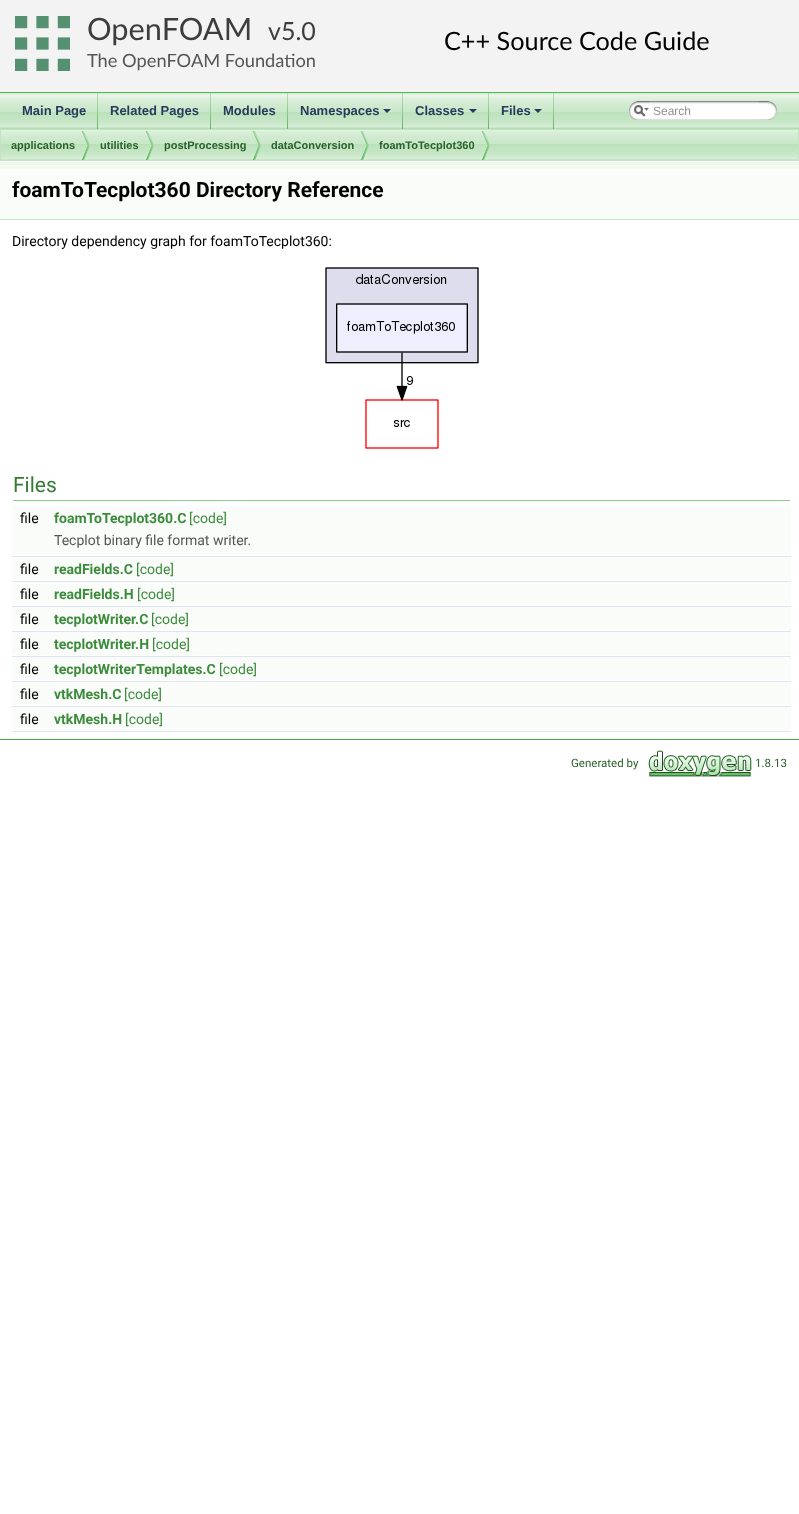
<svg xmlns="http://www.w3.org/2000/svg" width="799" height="1514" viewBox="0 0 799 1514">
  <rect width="100%" height="100%" fill="#ffffff"/>
  <rect x="0" y="0" width="799" height="92" fill="#f3f3f3"/>
  <rect x="0" y="92" width="799" height="1" fill="#53b453"/>
  <image x="15" y="16" width="55" height="55" href="img1.png"/>
  <text x="87" y="40" font-family="Lato" font-size="30.75" fill="#3d3d3d">OpenFOAM</text>
  <text x="268" y="40" font-family="Lato" font-size="25" fill="#3d3d3d">v5.0</text>
  <text x="87" y="67" font-family="Lato" font-size="18.25" fill="#555555">The OpenFOAM Foundation</text>
  <text x="444" y="50" font-family="Lato" font-size="25.25" fill="#000000">C++ Source Code Guide</text>
  <image x="0" y="93" width="799" height="36" href="img2.png"/>
  <image x="97" y="93" width="1" height="36" href="img3.png"/>
  <text x="22" y="115" font-family="Liberation Sans" font-size="13" font-weight="bold" fill="#283a5d">Main Page</text>
  <image x="210" y="93" width="1" height="36" href="img3.png"/>
  <text x="110" y="115" font-family="Liberation Sans" font-size="13" font-weight="bold" fill="#283a5d">Related Pages</text>
  <image x="287" y="93" width="1" height="36" href="img3.png"/>
  <text x="223" y="115" font-family="Liberation Sans" font-size="13" font-weight="bold" fill="#283a5d">Modules</text>
  <image x="402" y="93" width="1" height="36" href="img3.png"/>
  <text x="300" y="115" font-family="Liberation Sans" font-size="13" font-weight="bold" fill="#283a5d">Namespaces</text>
  <path d="M383 109H391L387 113Z" fill="#283a5d"/>
  <image x="488" y="93" width="1" height="36" href="img3.png"/>
  <text x="415" y="115" font-family="Liberation Sans" font-size="13" font-weight="bold" fill="#283a5d">Classes</text>
  <path d="M469 109H477L473 113Z" fill="#283a5d"/>
  <image x="553" y="93" width="1" height="36" href="img3.png"/>
  <text x="501" y="115" font-family="Liberation Sans" font-size="13" font-weight="bold" fill="#283a5d">Files</text>
  <path d="M534 109H542L538 113Z" fill="#283a5d"/>
  <image x="629" y="101" width="20" height="19" href="img4.png"/>
  <image x="634" y="105" width="15" height="12" href="img5.png"/>
  <image x="649" y="101" width="110" height="19" href="img6.png"/>
  <text x="653" y="115" font-family="Liberation Sans" font-size="12" fill="#909090">Search</text>
  <image x="759" y="101" width="18" height="19" href="img7.png"/>
  <image x="1" y="130" width="797" height="30" href="img8.png"/>
  <rect x="0.5" y="129.5" width="798" height="31" fill="none" stroke="#c2e4c2"/>
  <image x="82" y="131" width="8" height="29" href="img9.png"/>
  <text x="11" y="149" font-family="Liberation Sans" font-size="11" font-weight="bold" fill="#2a612a">applications</text>
  <image x="146" y="131" width="8" height="29" href="img9.png"/>
  <text x="100" y="149" font-family="Liberation Sans" font-size="11" font-weight="bold" fill="#2a612a">utilities</text>
  <image x="253" y="131" width="8" height="29" href="img9.png"/>
  <text x="164" y="149" font-family="Liberation Sans" font-size="11" font-weight="bold" fill="#2a612a">postProcessing</text>
  <image x="361" y="131" width="8" height="29" href="img9.png"/>
  <text x="271" y="149" font-family="Liberation Sans" font-size="11" font-weight="bold" fill="#2a612a">dataConversion</text>
  <image x="482" y="131" width="8" height="29" href="img9.png"/>
  <text x="379" y="149" font-family="Liberation Sans" font-size="11" font-weight="bold" fill="#2a612a">foamToTecplot360</text>
  <rect x="0" y="169" width="799" height="50" fill="#f9fcf9"/>
  <image x="0" y="161" width="799" height="8" href="img10.png"/>
  <rect x="0" y="219" width="799" height="1" fill="#c4e5c4"/>
  <text x="12" y="197" font-family="Roboto" font-size="21" font-weight="bold" fill="#000000">foamToTecplot360 Directory Reference</text>
  <text x="12" y="246" font-family="Roboto" font-size="14" fill="#000000">Directory dependency graph for foamToTecplot360:</text>
  <image x="325" y="267" width="154" height="182" href="img11.png"/>
  <rect x="13" y="500" width="777" height="1" fill="#87cb87"/>
  <text x="13" y="492" font-family="Roboto" font-size="21" fill="#357b35">Files</text>
  <rect x="12" y="506" width="779" height="23" fill="#f9fcf9"/>
  <text x="20" y="523" font-family="Roboto" font-size="14" fill="#000000">file</text>
  <text x="54" y="523" font-family="Roboto" font-size="14" font-weight="bold" fill="#3d8c3d">foamToTecplot360.C</text>
  <text x="189" y="523" font-family="Roboto" font-size="14" fill="#3d8c3d">[code]</text>
  <rect x="12" y="529" width="779" height="26" fill="#f9fcf9"/>
  <text x="54" y="545" font-family="Roboto" font-size="14" fill="#555555">Tecplot binary file format writer.</text>
  <rect x="12" y="556" width="779" height="1" fill="#dee4f0"/>
  <rect x="12" y="557" width="779" height="23" fill="#f9fcf9"/>
  <text x="20" y="574" font-family="Roboto" font-size="14" fill="#000000">file</text>
  <text x="54" y="574" font-family="Roboto" font-size="14" font-weight="bold" fill="#3d8c3d">readFields.C</text>
  <text x="136" y="574" font-family="Roboto" font-size="14" fill="#3d8c3d">[code]</text>
  <rect x="12" y="581" width="779" height="1" fill="#dee4f0"/>
  <rect x="12" y="582" width="779" height="23" fill="#f9fcf9"/>
  <text x="20" y="599" font-family="Roboto" font-size="14" fill="#000000">file</text>
  <text x="54" y="599" font-family="Roboto" font-size="14" font-weight="bold" fill="#3d8c3d">readFields.H</text>
  <text x="137" y="599" font-family="Roboto" font-size="14" fill="#3d8c3d">[code]</text>
  <rect x="12" y="606" width="779" height="1" fill="#dee4f0"/>
  <rect x="12" y="607" width="779" height="23" fill="#f9fcf9"/>
  <text x="20" y="624" font-family="Roboto" font-size="14" fill="#000000">file</text>
  <text x="54" y="624" font-family="Roboto" font-size="14" font-weight="bold" fill="#3d8c3d">tecplotWriter.C</text>
  <text x="151" y="624" font-family="Roboto" font-size="14" fill="#3d8c3d">[code]</text>
  <rect x="12" y="631" width="779" height="1" fill="#dee4f0"/>
  <rect x="12" y="632" width="779" height="23" fill="#f9fcf9"/>
  <text x="20" y="649" font-family="Roboto" font-size="14" fill="#000000">file</text>
  <text x="54" y="649" font-family="Roboto" font-size="14" font-weight="bold" fill="#3d8c3d">tecplotWriter.H</text>
  <text x="152" y="649" font-family="Roboto" font-size="14" fill="#3d8c3d">[code]</text>
  <rect x="12" y="656" width="779" height="1" fill="#dee4f0"/>
  <rect x="12" y="657" width="779" height="23" fill="#f9fcf9"/>
  <text x="20" y="674" font-family="Roboto" font-size="14" fill="#000000">file</text>
  <text x="54" y="674" font-family="Roboto" font-size="14" font-weight="bold" fill="#3d8c3d">tecplotWriterTemplates.C</text>
  <text x="219" y="674" font-family="Roboto" font-size="14" fill="#3d8c3d">[code]</text>
  <rect x="12" y="681" width="779" height="1" fill="#dee4f0"/>
  <rect x="12" y="682" width="779" height="23" fill="#f9fcf9"/>
  <text x="20" y="699" font-family="Roboto" font-size="14" fill="#000000">file</text>
  <text x="54" y="699" font-family="Roboto" font-size="14" font-weight="bold" fill="#3d8c3d">vtkMesh.C</text>
  <text x="124" y="699" font-family="Roboto" font-size="14" fill="#3d8c3d">[code]</text>
  <rect x="12" y="706" width="779" height="1" fill="#dee4f0"/>
  <rect x="12" y="707" width="779" height="23" fill="#f9fcf9"/>
  <text x="20" y="724" font-family="Roboto" font-size="14" fill="#000000">file</text>
  <text x="54" y="724" font-family="Roboto" font-size="14" font-weight="bold" fill="#3d8c3d">vtkMesh.H</text>
  <text x="125" y="724" font-family="Roboto" font-size="14" fill="#3d8c3d">[code]</text>
  <rect x="12" y="731" width="779" height="1" fill="#dee4f0"/>
  <rect x="0" y="739" width="799" height="1" fill="#4aaa4a"/>
  <text x="571" y="767" font-family="Roboto" font-size="11.5" fill="#2a612a">Generated by</text>
  <image x="648" y="750" width="104" height="27" href="img12.png"/>
  <text x="755" y="767" font-family="Roboto" font-size="11.5" fill="#2a612a">1.8.13</text>
</svg>
